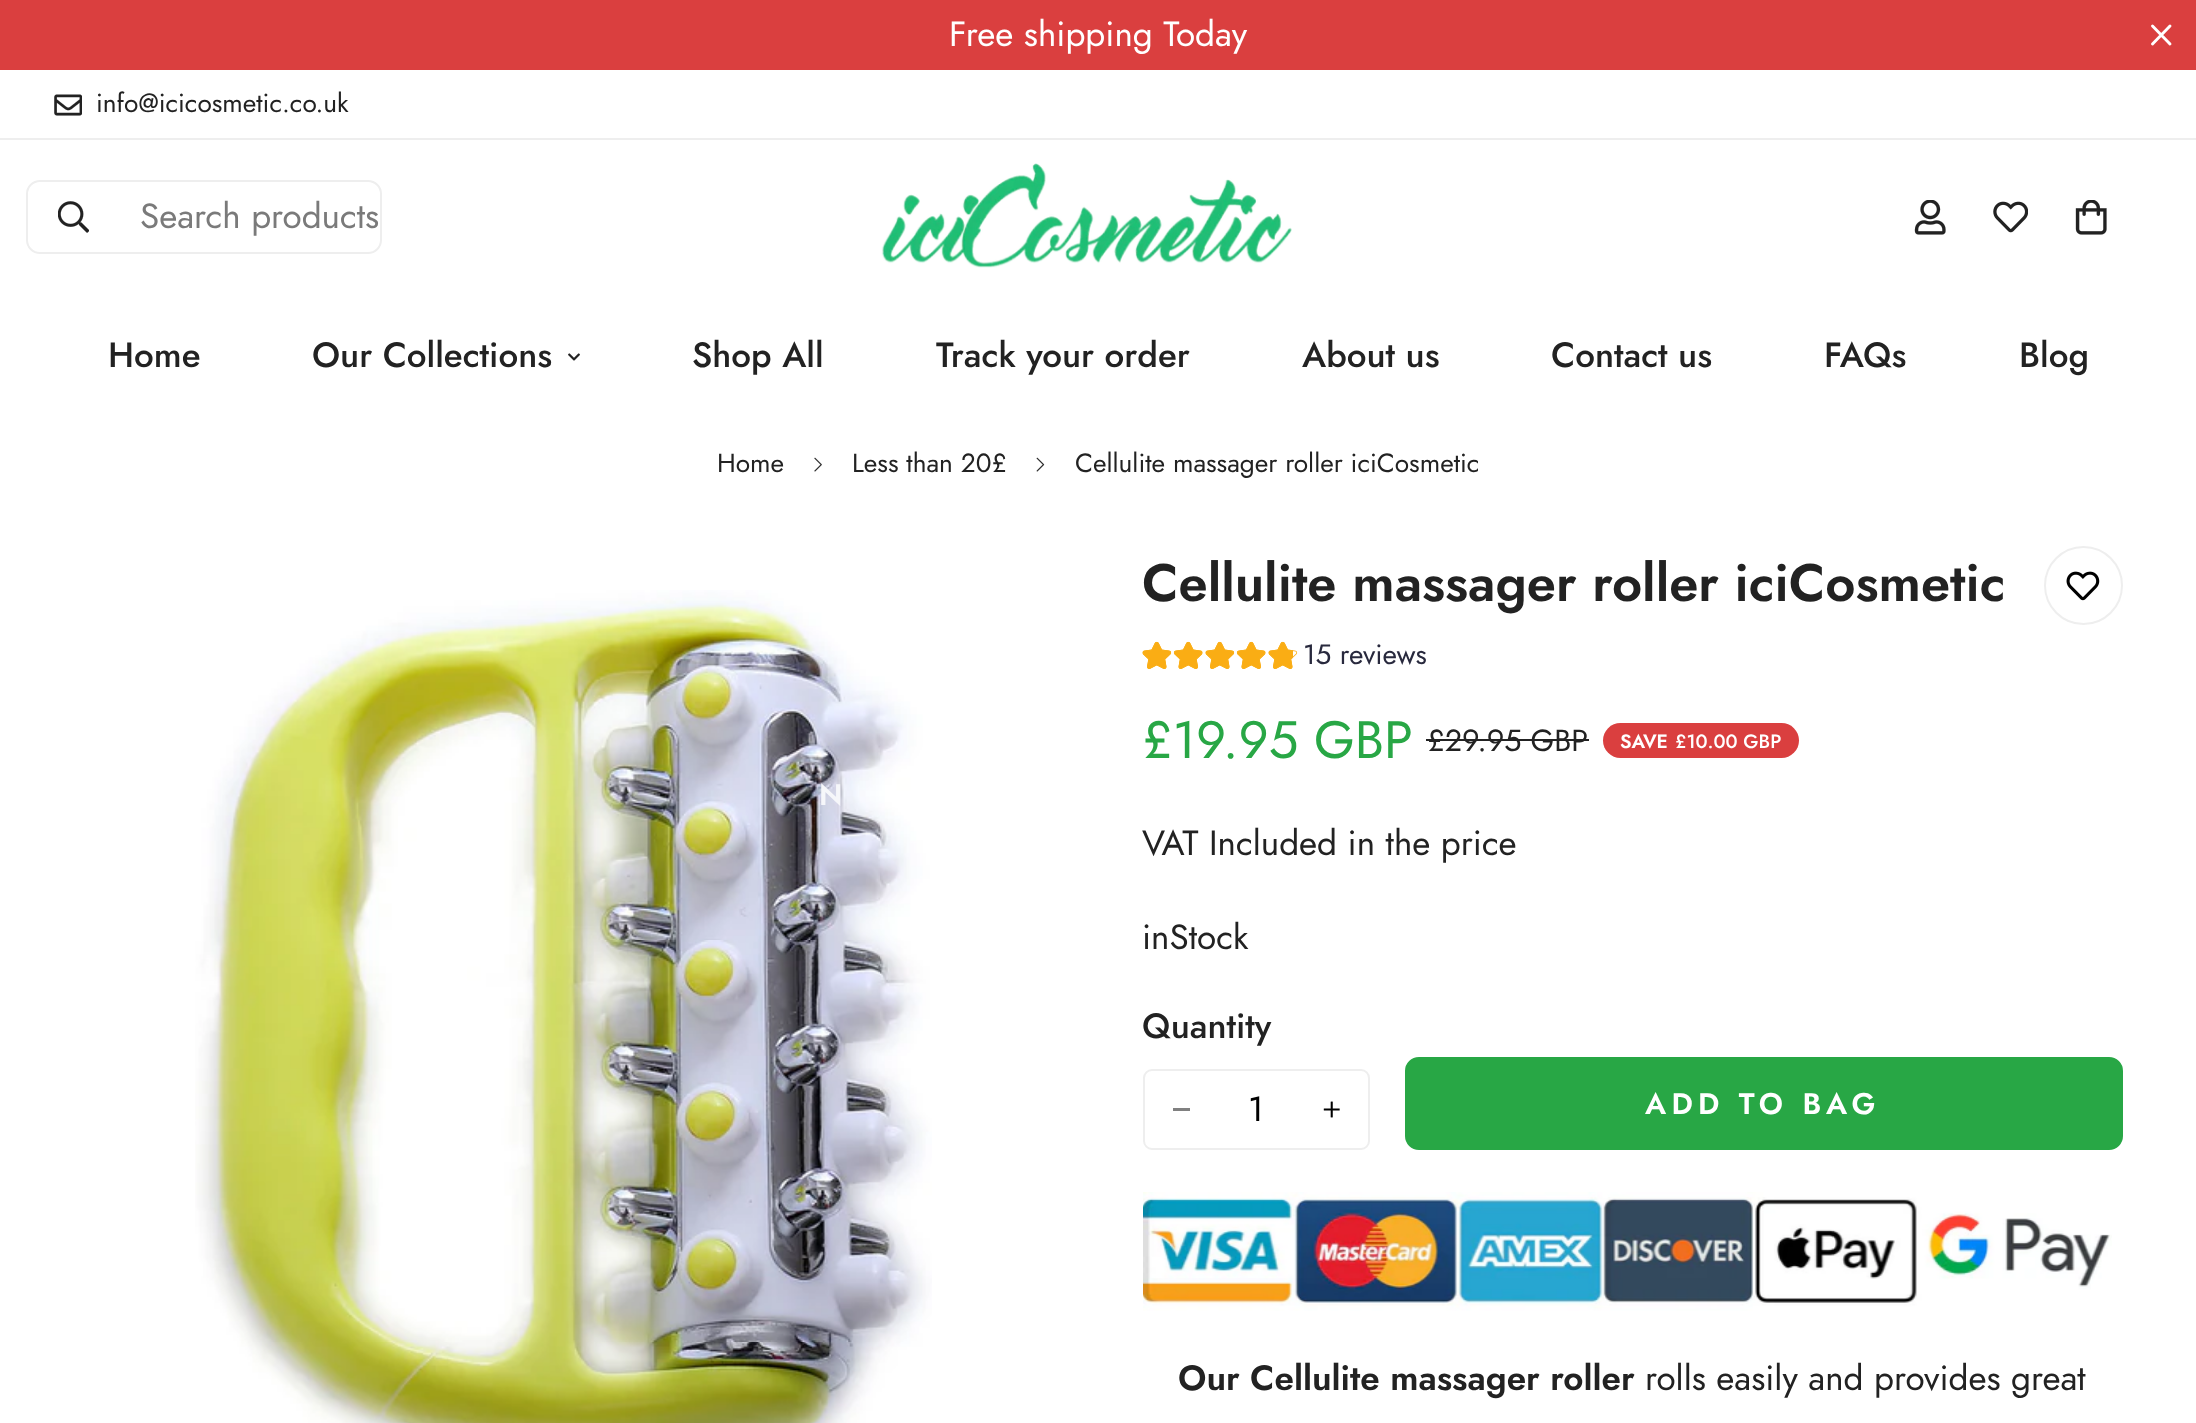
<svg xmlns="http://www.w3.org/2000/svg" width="2196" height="1423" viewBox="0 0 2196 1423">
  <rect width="100%" height="100%" fill="#ffffff"/>
  <rect x="0" y="0" width="2196" height="70" fill="#da3f3f"/>
  <text x="949" y="46" font-family="Jost" font-size="35" fill="#ffffff">Free shipping Today</text>
  <path d="M2152.5 44L2170 26M2152.5 26L2170 44" fill="none" stroke="#ffffff" stroke-width="2.9" stroke-linecap="round" stroke-linejoin="round"/>
  <rect x="0" y="138" width="2196" height="2" fill="#eeeeee"/>
  <image x="54" y="94" width="28" height="22" href="img1.png"/>
  <text x="96" y="112" font-family="Jost" font-size="26.25" fill="#222222">info@icicosmetic.co.uk</text>
  <rect x="27" y="181" width="354" height="72" rx="13" fill="none" stroke="#eeeeee" stroke-width="2"/>
  <image x="58" y="201" width="31" height="32" href="img2.png"/>
  <text x="140" y="228" font-family="Jost" font-size="35" fill="#7a7a7a">Search products</text>
  <image x="881" y="163" width="411" height="105" href="img3.png"/>
  <image x="1914" y="200" width="32" height="35" href="img4.png"/>
  <image x="1993" y="201" width="35" height="32" href="img5.png"/>
  <image x="2075" y="200" width="32" height="35" href="img6.png"/>
  <text x="108" y="367" font-family="Jost" font-size="35" font-weight="500" fill="#222222">Home</text>
  <text x="312" y="367" font-family="Jost" font-size="35" font-weight="500" fill="#222222">Our Collections</text>
  <image x="568" y="353" width="12" height="8" href="img7.png"/>
  <text x="692" y="367" font-family="Jost" font-size="35" font-weight="500" fill="#222222">Shop All</text>
  <text x="936" y="367" font-family="Jost" font-size="35" font-weight="500" fill="#222222">Track your order</text>
  <text x="1302" y="367" font-family="Jost" font-size="35" font-weight="500" fill="#222222">About us</text>
  <text x="1551" y="367" font-family="Jost" font-size="35" font-weight="500" fill="#222222">Contact us</text>
  <text x="1824" y="367" font-family="Jost" font-size="35" font-weight="500" fill="#222222">FAQs</text>
  <text x="2019" y="367" font-family="Jost" font-size="35" font-weight="500" fill="#222222">Blog</text>
  <text x="717" y="472" font-family="Jost" font-size="26.25" fill="#222222">Home</text>
  <image x="814" y="457" width="8" height="15" href="img8.png"/>
  <text x="852" y="472" font-family="Jost" font-size="26.25" fill="#222222">Less than 20£</text>
  <image x="1036" y="457" width="9" height="15" href="img9.png"/>
  <text x="1075" y="472" font-family="Jost" font-size="26.25" fill="#222222">Cellulite massager roller iciCosmetic</text>
  <image x="195" y="590" width="737" height="833" href="img10.png"/>
  <text x="1142" y="601" font-family="Jost" font-size="52.5" font-weight="600" fill="#222222">Cellulite massager roller iciCosmetic</text>
  <circle cx="2083.5" cy="585.5" r="38.5" fill="none" stroke="#eeeeee" stroke-width="2"/>
  <image x="2066" y="571" width="34" height="30" href="img11.png"/>
  <image x="1142" y="641" width="30" height="28" href="img12.png"/>
  <image x="1143" y="642" width="28" height="27" href="img13.png"/>
  <image x="1173" y="641" width="30" height="28" href="img14.png"/>
  <image x="1174" y="642" width="28" height="27" href="img15.png"/>
  <image x="1205" y="641" width="30" height="28" href="img12.png"/>
  <image x="1206" y="642" width="28" height="27" href="img13.png"/>
  <image x="1236" y="641" width="30" height="28" href="img14.png"/>
  <image x="1237" y="642" width="28" height="27" href="img15.png"/>
  <image x="1268" y="641" width="30" height="28" href="img12.png"/>
  <image x="1269" y="642" width="24" height="27" href="img16.png"/>
  <text x="1303" y="664" font-family="Jost" font-size="28" fill="#28293d">15 reviews</text>
  <text x="1142" y="758" font-family="Jost" font-size="52.5" fill="#28a745">£19.95 GBP</text>
  <text x="1427" y="751" font-family="Jost" font-size="30.5" fill="#222222">£29.95 GBP</text>
  <rect x="1426" y="739" width="163" height="2" fill="#222222"/>
  <rect x="1603" y="723" width="196" height="35" rx="17.5" fill="#da3f3f"/>
  <text x="1620" y="748" font-family="Jost" font-size="19.25" font-weight="600" fill="#ffffff">SAVE</text>
  <text x="1675" y="748" font-family="Jost" font-size="19.25" font-weight="500" fill="#ffffff">£10.00 GBP</text>
  <text x="1142" y="855" font-family="Jost" font-size="35" fill="#222222">VAT Included in the price</text>
  <text x="1142" y="949" font-family="Jost" font-size="35" fill="#222222">inStock</text>
  <text x="1142" y="1038" font-family="Jost" font-size="35" font-weight="500" fill="#222222">Quantity</text>
  <rect x="1144" y="1070" width="225" height="79" rx="8" fill="none" stroke="#eeeeee" stroke-width="2"/>
  <rect x="1173" y="1108" width="17" height="3" fill="#808080"/>
  <text x="1248" y="1121" font-family="Jost" font-size="35" fill="#000000">1</text>
  <image x="1323" y="1101" width="17" height="17" href="img17.png"/>
  <rect x="1406" y="1058" width="716" height="91" rx="13" fill="#28a745" stroke="#28a745" stroke-width="2"/>
  <text x="1645" y="1114" font-family="Jost" font-size="29.75" font-weight="600" letter-spacing="5.25" fill="#ffffff">ADD TO BAG</text>
  <image x="1143" y="1192" width="969" height="119" href="img18.png"/>
  <text x="1178" y="1390" font-family="Jost" font-size="35" font-weight="600" fill="#222222">Our Cellulite massager roller</text>
  <text x="1645" y="1390" font-family="Jost" font-size="35" fill="#222222">rolls easily and provides great</text>
  <text x="819" y="805" font-family="Jost" font-size="29.75" font-weight="600" letter-spacing="5.25" fill="#f6f7fa">N</text>
</svg>
